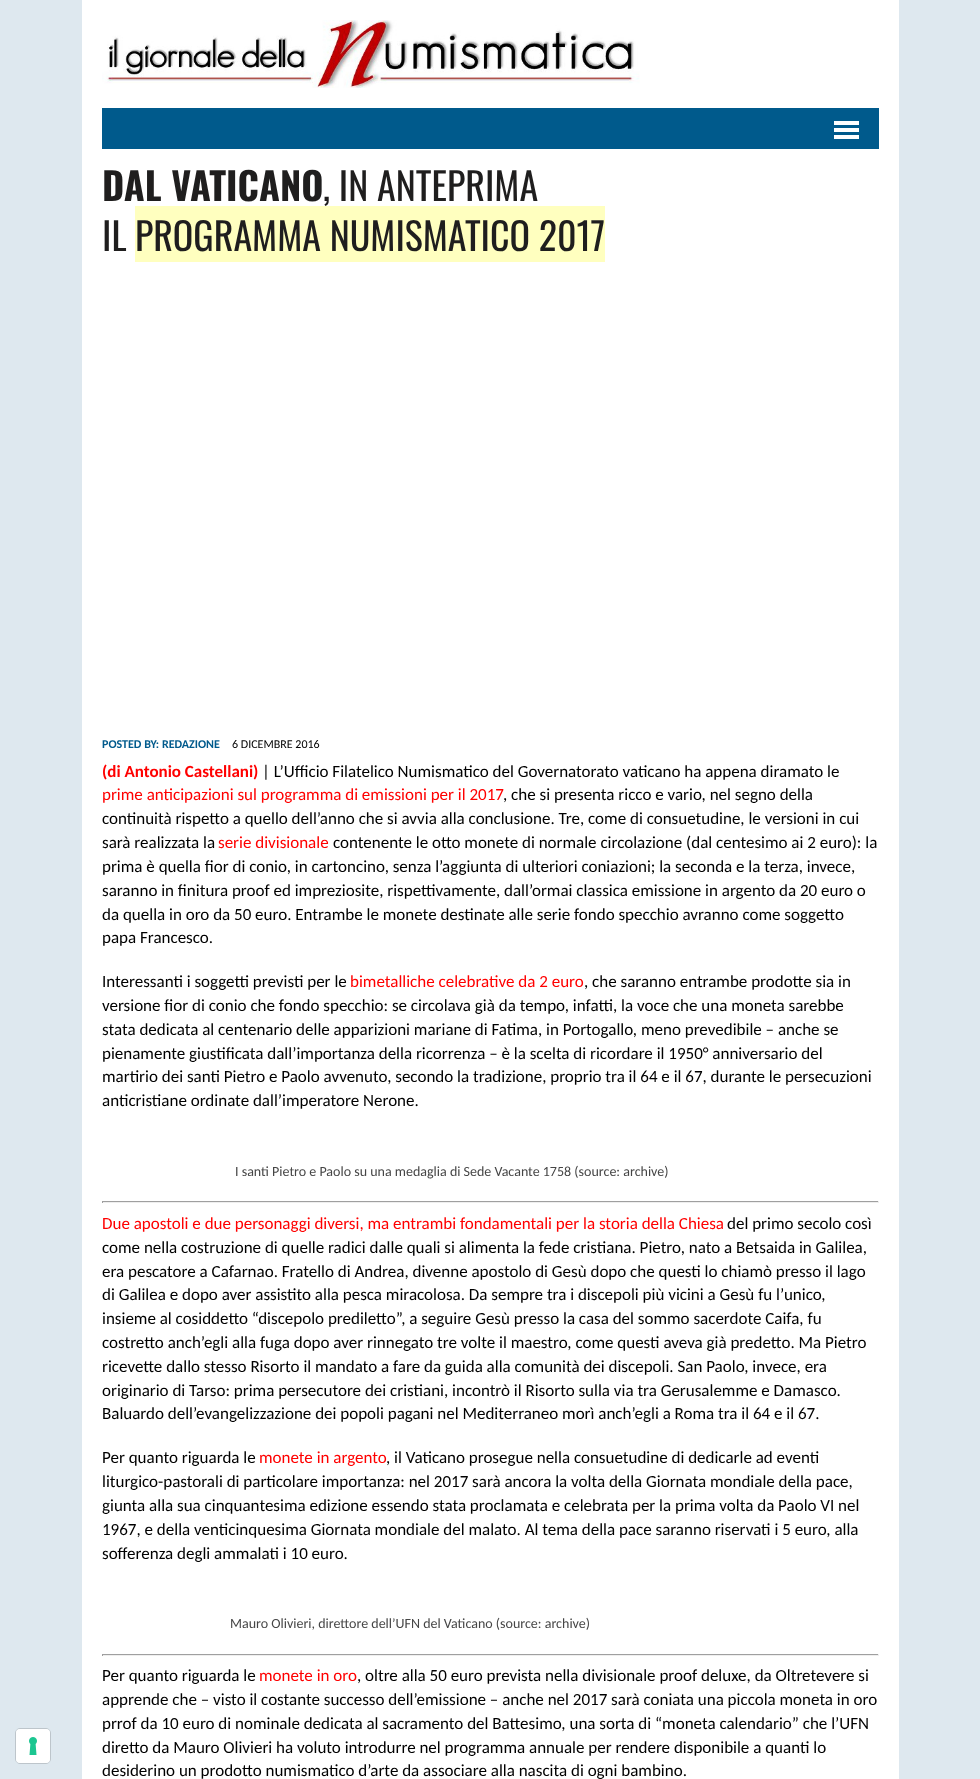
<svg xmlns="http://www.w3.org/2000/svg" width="980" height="1779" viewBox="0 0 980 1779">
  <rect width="100%" height="100%" fill="#dee8ef"/>
  <rect x="15.5" y="1728.5" width="35" height="35" rx="4.5" fill="none" stroke="#bdc5cb"/>
  <rect x="16" y="1729" width="34" height="34" rx="4" fill="#ffffff"/>
  <image x="29" y="1737" width="8" height="18" href="img1.png"/>
  <rect x="82" y="0" width="817" height="1779" fill="#ffffff"/>
  <image x="102" y="20" width="538" height="68" href="img2.png"/>
  <rect x="102" y="108" width="777" height="41" fill="#005a8c"/>
  <rect x="834" y="121" width="25" height="4" fill="#ffffff"/>
  <rect x="834" y="128" width="25" height="4" fill="#ffffff"/>
  <rect x="834" y="135" width="25" height="4" fill="#ffffff"/>
  <text x="102" y="201" font-family="Oswald" font-size="38" font-weight="bold" fill="#1f1e1e">DAL VATICANO</text>
  <text x="323" y="201" font-family="Oswald" font-size="38" fill="#1f1e1e">, IN ANTEPRIMA</text>
  <text x="102" y="251" font-family="Oswald" font-size="38" fill="#1f1e1e">IL</text>
  <rect x="135" y="206" width="470" height="56" fill="#ffffbf"/>
  <text x="135" y="251" font-family="Oswald" font-size="38" fill="#1f1e1e">PROGRAMMA NUMISMATICO 2017</text>
  <text x="102" y="748" font-family="Carlito" font-size="12" font-weight="bold" fill="#005a8c">POSTED BY: REDAZIONE</text>
  <text x="232" y="748" font-family="Carlito" font-size="12" fill="#000000">6 DICEMBRE 2016</text>
  <text x="102" y="777" font-family="Carlito" font-size="17" font-weight="bold" fill="#ff0000">(di Antonio Castellani)</text>
  <text x="262" y="777" font-family="Carlito" font-size="17" fill="#000000">| L’Ufficio Filatelico Numismatico del Governatorato vaticano ha appena diramato le</text>
  <text x="102" y="800" font-family="Carlito" font-size="17" fill="#ff0000">prime anticipazioni sul programma di emissioni per il 2017</text>
  <text x="503" y="800" font-family="Carlito" font-size="17" fill="#000000">, che si presenta ricco e vario, nel segno della</text>
  <text x="102" y="824" font-family="Carlito" font-size="17" fill="#000000">continuità rispetto a quello dell’anno che si avvia alla conclusione. Tre, come di consuetudine, le versioni in cui</text>
  <text x="102" y="848" font-family="Carlito" font-size="17" fill="#000000">sarà realizzata la</text>
  <text x="218" y="848" font-family="Carlito" font-size="17" fill="#ff0000">serie divisionale</text>
  <text x="333" y="848" font-family="Carlito" font-size="17" fill="#000000">contenente le otto monete di normale circolazione (dal centesimo ai 2 euro): la</text>
  <text x="102" y="872" font-family="Carlito" font-size="17" fill="#000000">prima è quella fior di conio, in cartoncino, senza l’aggiunta di ulteriori coniazioni; la seconda e la terza, invece,</text>
  <text x="102" y="896" font-family="Carlito" font-size="17" fill="#000000">saranno in finitura proof ed impreziosite, rispettivamente, dall’ormai classica emissione in argento da 20 euro o</text>
  <text x="102" y="920" font-family="Carlito" font-size="17" fill="#000000">da quella in oro da 50 euro. Entrambe le monete destinate alle serie fondo specchio avranno come soggetto</text>
  <text x="102" y="943" font-family="Carlito" font-size="17" fill="#000000">papa Francesco.</text>
  <text x="102" y="987" font-family="Carlito" font-size="17" fill="#000000">Interessanti i soggetti previsti per le</text>
  <text x="350" y="987" font-family="Carlito" font-size="17" fill="#ff0000">bimetalliche celebrative da 2 euro</text>
  <text x="584" y="987" font-family="Carlito" font-size="17" fill="#000000">, che saranno entrambe prodotte sia in</text>
  <text x="102" y="1011" font-family="Carlito" font-size="17" fill="#000000">versione fior di conio che fondo specchio: se circolava già da tempo, infatti, la voce che una moneta sarebbe</text>
  <text x="102" y="1035" font-family="Carlito" font-size="17" fill="#000000">stata dedicata al centenario delle apparizioni mariane di Fatima, in Portogallo, meno prevedibile – anche se</text>
  <text x="102" y="1059" font-family="Carlito" font-size="17" fill="#000000">pienamente giustificata dall’importanza della ricorrenza – è la scelta di ricordare il 1950° anniversario del</text>
  <text x="102" y="1082" font-family="Carlito" font-size="17" fill="#000000">martirio dei santi Pietro e Paolo avvenuto, secondo la tradizione, proprio tra il 64 e il 67, durante le persecuzioni</text>
  <text x="102" y="1106" font-family="Carlito" font-size="17" fill="#000000">anticristiane ordinate dall’imperatore Nerone.</text>
  <text x="235" y="1176" font-family="Carlito" font-size="14" fill="#454545">I santi Pietro e Paolo su una medaglia di Sede Vacante 1758 (source: archive)</text>
  <rect x="102" y="1201" width="777" height="1" fill="#9f9f9f"/>
  <rect x="878" y="1201" width="1" height="2" fill="#eeeeee"/>
  <rect x="102" y="1202" width="777" height="1" fill="#eeeeee"/>
  <rect x="102" y="1201" width="1" height="2" fill="#9f9f9f"/>
  <text x="102" y="1229" font-family="Carlito" font-size="17" fill="#ff0000">Due apostoli e due personaggi diversi, ma entrambi fondamentali per la storia della Chiesa</text>
  <text x="727" y="1229" font-family="Carlito" font-size="17" fill="#000000">del primo secolo così</text>
  <text x="102" y="1253" font-family="Carlito" font-size="17" fill="#000000">come nella costruzione di quelle radici dalle quali si alimenta la fede cristiana. Pietro, nato a Betsaida in Galilea,</text>
  <text x="102" y="1277" font-family="Carlito" font-size="17" fill="#000000">era pescatore a Cafarnao. Fratello di Andrea, divenne apostolo di Gesù dopo che questi lo chiamò presso il lago</text>
  <text x="102" y="1300" font-family="Carlito" font-size="17" fill="#000000">di Galilea e dopo aver assistito alla pesca miracolosa. Da sempre tra i discepoli più vicini a Gesù fu l’unico,</text>
  <text x="102" y="1324" font-family="Carlito" font-size="17" fill="#000000">insieme al cosiddetto “discepolo prediletto”, a seguire Gesù presso la casa del sommo sacerdote Caifa, fu</text>
  <text x="102" y="1348" font-family="Carlito" font-size="17" fill="#000000">costretto anch’egli alla fuga dopo aver rinnegato tre volte il maestro, come questi aveva già predetto. Ma Pietro</text>
  <text x="102" y="1372" font-family="Carlito" font-size="17" fill="#000000">ricevette dallo stesso Risorto il mandato a fare da guida alla comunità dei discepoli. San Paolo, invece, era</text>
  <text x="102" y="1396" font-family="Carlito" font-size="17" fill="#000000">originario di Tarso: prima persecutore dei cristiani, incontrò il Risorto sulla via tra Gerusalemme e Damasco.</text>
  <text x="102" y="1419" font-family="Carlito" font-size="17" fill="#000000">Baluardo dell’evangelizzazione dei popoli pagani nel Mediterraneo morì anch’egli a Roma tra il 64 e il 67.</text>
  <text x="102" y="1463" font-family="Carlito" font-size="17" fill="#000000">Per quanto riguarda le</text>
  <text x="259" y="1463" font-family="Carlito" font-size="17" fill="#ff0000">monete in argento</text>
  <text x="386" y="1463" font-family="Carlito" font-size="17" fill="#000000">, il Vaticano prosegue nella consuetudine di dedicarle ad eventi</text>
  <text x="102" y="1487" font-family="Carlito" font-size="17" fill="#000000">liturgico-pastorali di particolare importanza: nel 2017 sarà ancora la volta della Giornata mondiale della pace,</text>
  <text x="102" y="1511" font-family="Carlito" font-size="17" fill="#000000">giunta alla sua cinquantesima edizione essendo stata proclamata e celebrata per la prima volta da Paolo VI nel</text>
  <text x="102" y="1535" font-family="Carlito" font-size="17" fill="#000000">1967, e della venticinquesima Giornata mondiale del malato. Al tema della pace saranno riservati i 5 euro, alla</text>
  <text x="102" y="1559" font-family="Carlito" font-size="17" fill="#000000">sofferenza degli ammalati i 10 euro.</text>
  <text x="230" y="1628" font-family="Carlito" font-size="14" fill="#454545">Mauro Olivieri, direttore dell’UFN del Vaticano (source: archive)</text>
  <rect x="102" y="1654" width="777" height="1" fill="#9f9f9f"/>
  <rect x="878" y="1654" width="1" height="2" fill="#eeeeee"/>
  <rect x="102" y="1655" width="777" height="1" fill="#eeeeee"/>
  <rect x="102" y="1654" width="1" height="2" fill="#9f9f9f"/>
  <text x="102" y="1681" font-family="Carlito" font-size="17" fill="#000000">Per quanto riguarda le</text>
  <text x="259" y="1681" font-family="Carlito" font-size="17" fill="#ff0000">monete in oro</text>
  <text x="357" y="1681" font-family="Carlito" font-size="17" fill="#000000">, oltre alla 50 euro prevista nella divisionale proof deluxe, da Oltretevere si</text>
  <text x="102" y="1705" font-family="Carlito" font-size="17" fill="#000000">apprende che – visto il costante successo dell’emissione – anche nel 2017 sarà coniata una piccola moneta in oro</text>
  <text x="102" y="1729" font-family="Carlito" font-size="17" fill="#000000">prrof da 10 euro di nominale dedicata al sacramento del Battesimo, una sorta di “moneta calendario” che l’UFN</text>
  <text x="102" y="1753" font-family="Carlito" font-size="17" fill="#000000">diretto da Mauro Olivieri ha voluto introdurre nel programma annuale per rendere disponibile a quanti lo</text>
  <text x="102" y="1776" font-family="Carlito" font-size="17" fill="#000000">desiderino un prodotto numismatico d’arte da associare alla nascita di ogni bambino.</text>
</svg>
